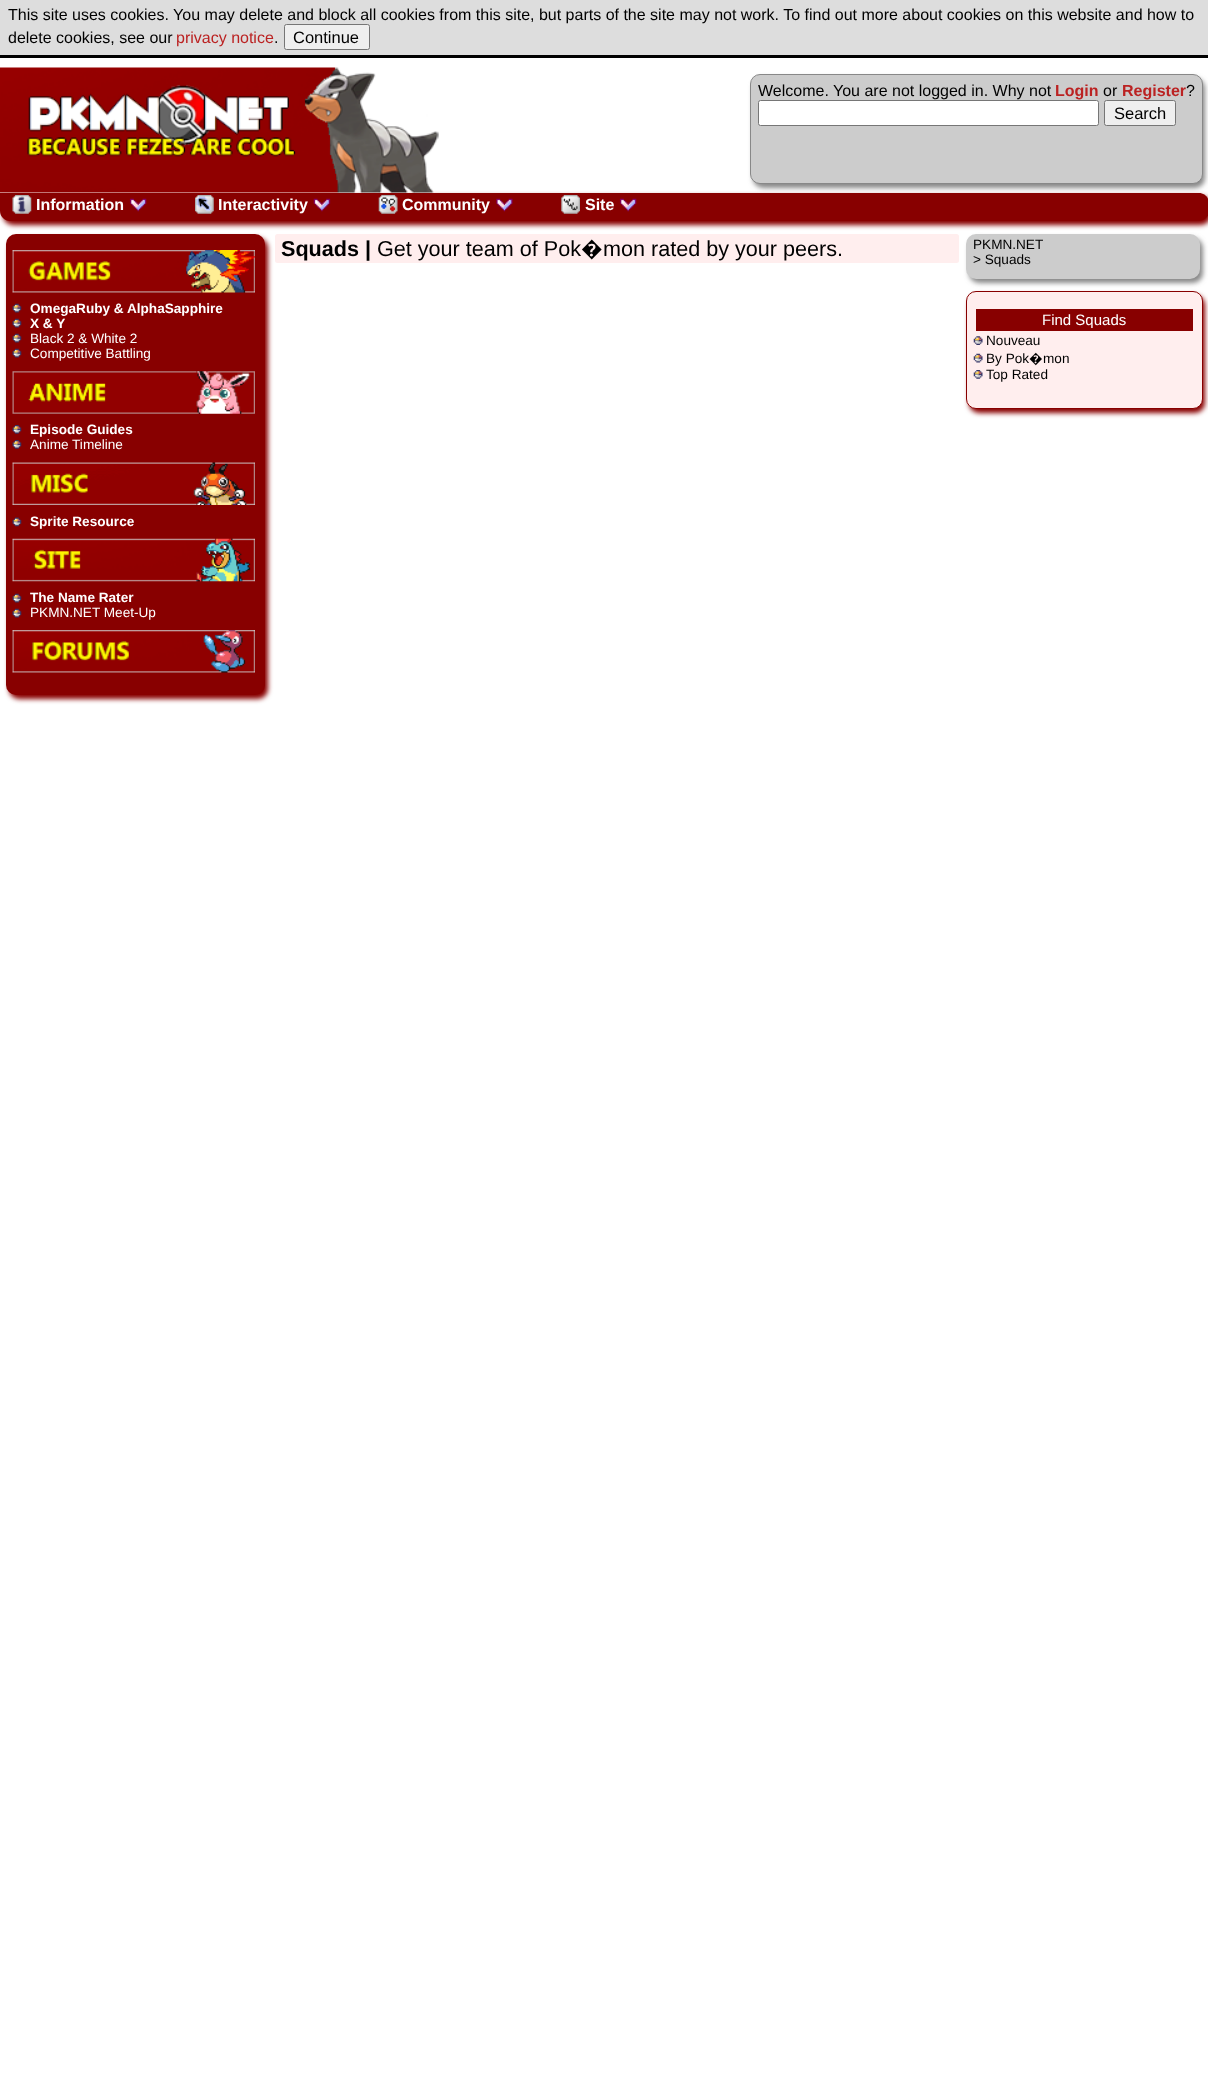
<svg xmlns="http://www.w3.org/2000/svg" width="1208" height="2088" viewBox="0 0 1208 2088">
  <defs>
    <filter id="blur1" x="-50%" y="-200%" width="200%" height="500%"><feGaussianBlur stdDeviation="2.5"/></filter>
  </defs>
  <rect width="100%" height="100%" fill="#ffffff"/>
  <rect x="0" y="0" width="1208" height="55" fill="#dddddd"/>
  <rect x="0" y="55" width="1208" height="3" fill="#000000"/>
  <text x="8" y="20" font-family="Liberation Sans" font-size="16" fill="#000000">This site uses cookies. You may delete and block all cookies from this site, but parts of the site may not work. To find out more about cookies on this website and how to</text>
  <text x="8" y="43" font-family="Liberation Sans" font-size="16" fill="#000000">delete cookies, see our</text>
  <text x="176" y="43" font-family="Liberation Sans" font-size="16" fill="#bb2222">privacy notice</text>
  <text x="274" y="43" font-family="Liberation Sans" font-size="16" fill="#000000">.</text>
  <rect x="284.5" y="24.5" width="85" height="25" rx="2" fill="#efefef" stroke="#767676"/>
  <text x="293" y="43" font-family="Liberation Sans" font-size="16.5" fill="#000000">Continue</text>
  <image x="0" y="67" width="439" height="126" href="img1.png"/>
  <rect x="753" y="78" width="452" height="110" rx="10" fill="#888888" filter="url(#blur1)"/>
  <rect x="750.5" y="74.5" width="452" height="109" rx="9.5" fill="#cccccc" stroke="#888888"/>
  <text x="758" y="96" font-family="Liberation Sans" font-size="16" fill="#000000">Welcome. You are not logged in. Why not</text>
  <text x="1055" y="96" font-family="Liberation Sans" font-size="16" font-weight="bold" fill="#bb2222">Login</text>
  <text x="1103" y="96" font-family="Liberation Sans" font-size="16" fill="#000000">or</text>
  <text x="1122" y="96" font-family="Liberation Sans" font-size="16" font-weight="bold" fill="#bb2222">Register</text>
  <text x="1186" y="96" font-family="Liberation Sans" font-size="16" fill="#000000">?</text>
  <rect x="758.5" y="100.5" width="340" height="25" rx="2" fill="#ffffff" stroke="#767676"/>
  <rect x="1104.5" y="100.5" width="71" height="25" rx="2" fill="#efefef" stroke="#767676"/>
  <text x="1114" y="119" font-family="Liberation Sans" font-size="16.5" fill="#000000">Search</text>
  <rect x="3" y="196" width="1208" height="29" rx="10" fill="#880000" filter="url(#blur1)"/>
  <path d="M0 193H1199C1204.5 193 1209 197.5 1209 203V211C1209 216.5 1204.5 221 1199 221H10C4.5 221 0 216.5 0 211Z" fill="#880000"/>
  <image x="12" y="195" width="20" height="19" href="img2.png"/>
  <text x="36" y="210" font-family="Liberation Sans" font-size="16" font-weight="bold" fill="#ffffff">Information</text>
  <image x="129" y="198" width="18" height="14" href="img3.png"/>
  <image x="195" y="195" width="19" height="19" href="img4.png"/>
  <text x="218" y="210" font-family="Liberation Sans" font-size="16" font-weight="bold" fill="#ffffff">Interactivity</text>
  <image x="313" y="198" width="18" height="14" href="img5.png"/>
  <image x="378" y="195" width="20" height="19" href="img6.png"/>
  <text x="402" y="210" font-family="Liberation Sans" font-size="16" font-weight="bold" fill="#ffffff">Community</text>
  <image x="496" y="198" width="17" height="14" href="img7.png"/>
  <image x="561" y="195" width="19" height="19" href="img8.png"/>
  <text x="585" y="210" font-family="Liberation Sans" font-size="16" font-weight="bold" fill="#ffffff">Site</text>
  <image x="619" y="198" width="18" height="14" href="img9.png"/>
  <rect x="275" y="234" width="684" height="29" rx="2.5" fill="#ffeeee"/>
  <rect x="9" y="238" width="259" height="461" rx="10" fill="#880000" filter="url(#blur1)"/>
  <rect x="6" y="234" width="259" height="461" rx="10" fill="#880000"/>
  <image x="12" y="250" width="243" height="43" href="img10.png"/>
  <image x="12" y="303" width="10" height="10" href="img11.png"/>
  <text x="30" y="313" font-family="Liberation Sans" font-size="13.6" font-weight="bold" fill="#ffffff">OmegaRuby &amp; AlphaSapphire</text>
  <image x="12" y="318" width="10" height="10" href="img11.png"/>
  <text x="30" y="328" font-family="Liberation Sans" font-size="13.6" font-weight="bold" fill="#ffffff">X &amp; Y</text>
  <image x="12" y="333" width="10" height="10" href="img11.png"/>
  <text x="30" y="343" font-family="Liberation Sans" font-size="13.6" fill="#ffffff">Black 2 &amp; White 2</text>
  <image x="12" y="348" width="10" height="10" href="img11.png"/>
  <text x="30" y="358" font-family="Liberation Sans" font-size="13.6" fill="#ffffff">Competitive Battling</text>
  <image x="12" y="371" width="243" height="43" href="img12.png"/>
  <image x="12" y="425" width="10" height="9" href="img13.png"/>
  <text x="30" y="434" font-family="Liberation Sans" font-size="13.6" font-weight="bold" fill="#ffffff">Episode Guides</text>
  <image x="12" y="440" width="10" height="9" href="img13.png"/>
  <text x="30" y="449" font-family="Liberation Sans" font-size="13.6" fill="#ffffff">Anime Timeline</text>
  <image x="12" y="462" width="243" height="43" href="img14.png"/>
  <image x="12" y="517" width="10" height="10" href="img15.png"/>
  <text x="30" y="526" font-family="Liberation Sans" font-size="13.6" font-weight="bold" fill="#ffffff">Sprite Resource</text>
  <image x="12" y="538" width="243" height="44" href="img16.png"/>
  <image x="12" y="593" width="10" height="10" href="img11.png"/>
  <text x="30" y="602" font-family="Liberation Sans" font-size="13.6" font-weight="bold" fill="#ffffff">The Name Rater</text>
  <image x="12" y="608" width="10" height="10" href="img11.png"/>
  <text x="30" y="617" font-family="Liberation Sans" font-size="13.6" fill="#ffffff">PKMN.NET Meet-Up</text>
  <image x="12" y="630" width="243" height="43" href="img17.png"/>
  <text x="281" y="256" font-family="Liberation Sans" font-size="21.6" font-weight="bold" fill="#000000">Squads |</text>
  <text x="377" y="256" font-family="Liberation Sans" font-size="21.6" fill="#000000">Get your team of Pok</text>
  <text x="581" y="256" font-family="Noto Sans" font-size="21.6" fill="#000000">�</text>
  <text x="603" y="256" font-family="Liberation Sans" font-size="21.6" fill="#000000">mon rated by your peers.</text>
  <rect x="969" y="238" width="234" height="45" rx="10" fill="#888888" filter="url(#blur1)"/>
  <rect x="966" y="234" width="234" height="45" rx="10" fill="#cccccc"/>
  <text x="973" y="249" font-family="Liberation Sans" font-size="13.6" fill="#000000">PKMN.NET</text>
  <text x="973" y="264" font-family="Liberation Sans" font-size="13.6" fill="#000000">&gt; Squads</text>
  <rect x="969" y="295" width="236" height="118" rx="10" fill="#880000" filter="url(#blur1)"/>
  <rect x="966.5" y="291.5" width="236" height="117" rx="9.5" fill="#ffeeee" stroke="#880000"/>
  <rect x="976" y="309" width="217" height="22" fill="#880000"/>
  <text x="1042" y="325" font-family="Liberation Sans" font-size="15" fill="#ffffff">Find Squads</text>
  <image x="973" y="336" width="10" height="9" href="img18.png"/>
  <text x="986" y="345" font-family="Liberation Sans" font-size="13.6" fill="#000000">Nouveau</text>
  <image x="973" y="353" width="10" height="10" href="img19.png"/>
  <text x="986" y="363" font-family="Liberation Sans" font-size="13.6" fill="#000000">By Pok</text>
  <text x="1029" y="363" font-family="Noto Sans" font-size="13.6" fill="#000000">�</text>
  <text x="1043" y="363" font-family="Liberation Sans" font-size="13.6" fill="#000000">mon</text>
  <image x="973" y="370" width="10" height="9" href="img20.png"/>
  <text x="986" y="379" font-family="Liberation Sans" font-size="13.6" fill="#000000">Top Rated</text>
</svg>
